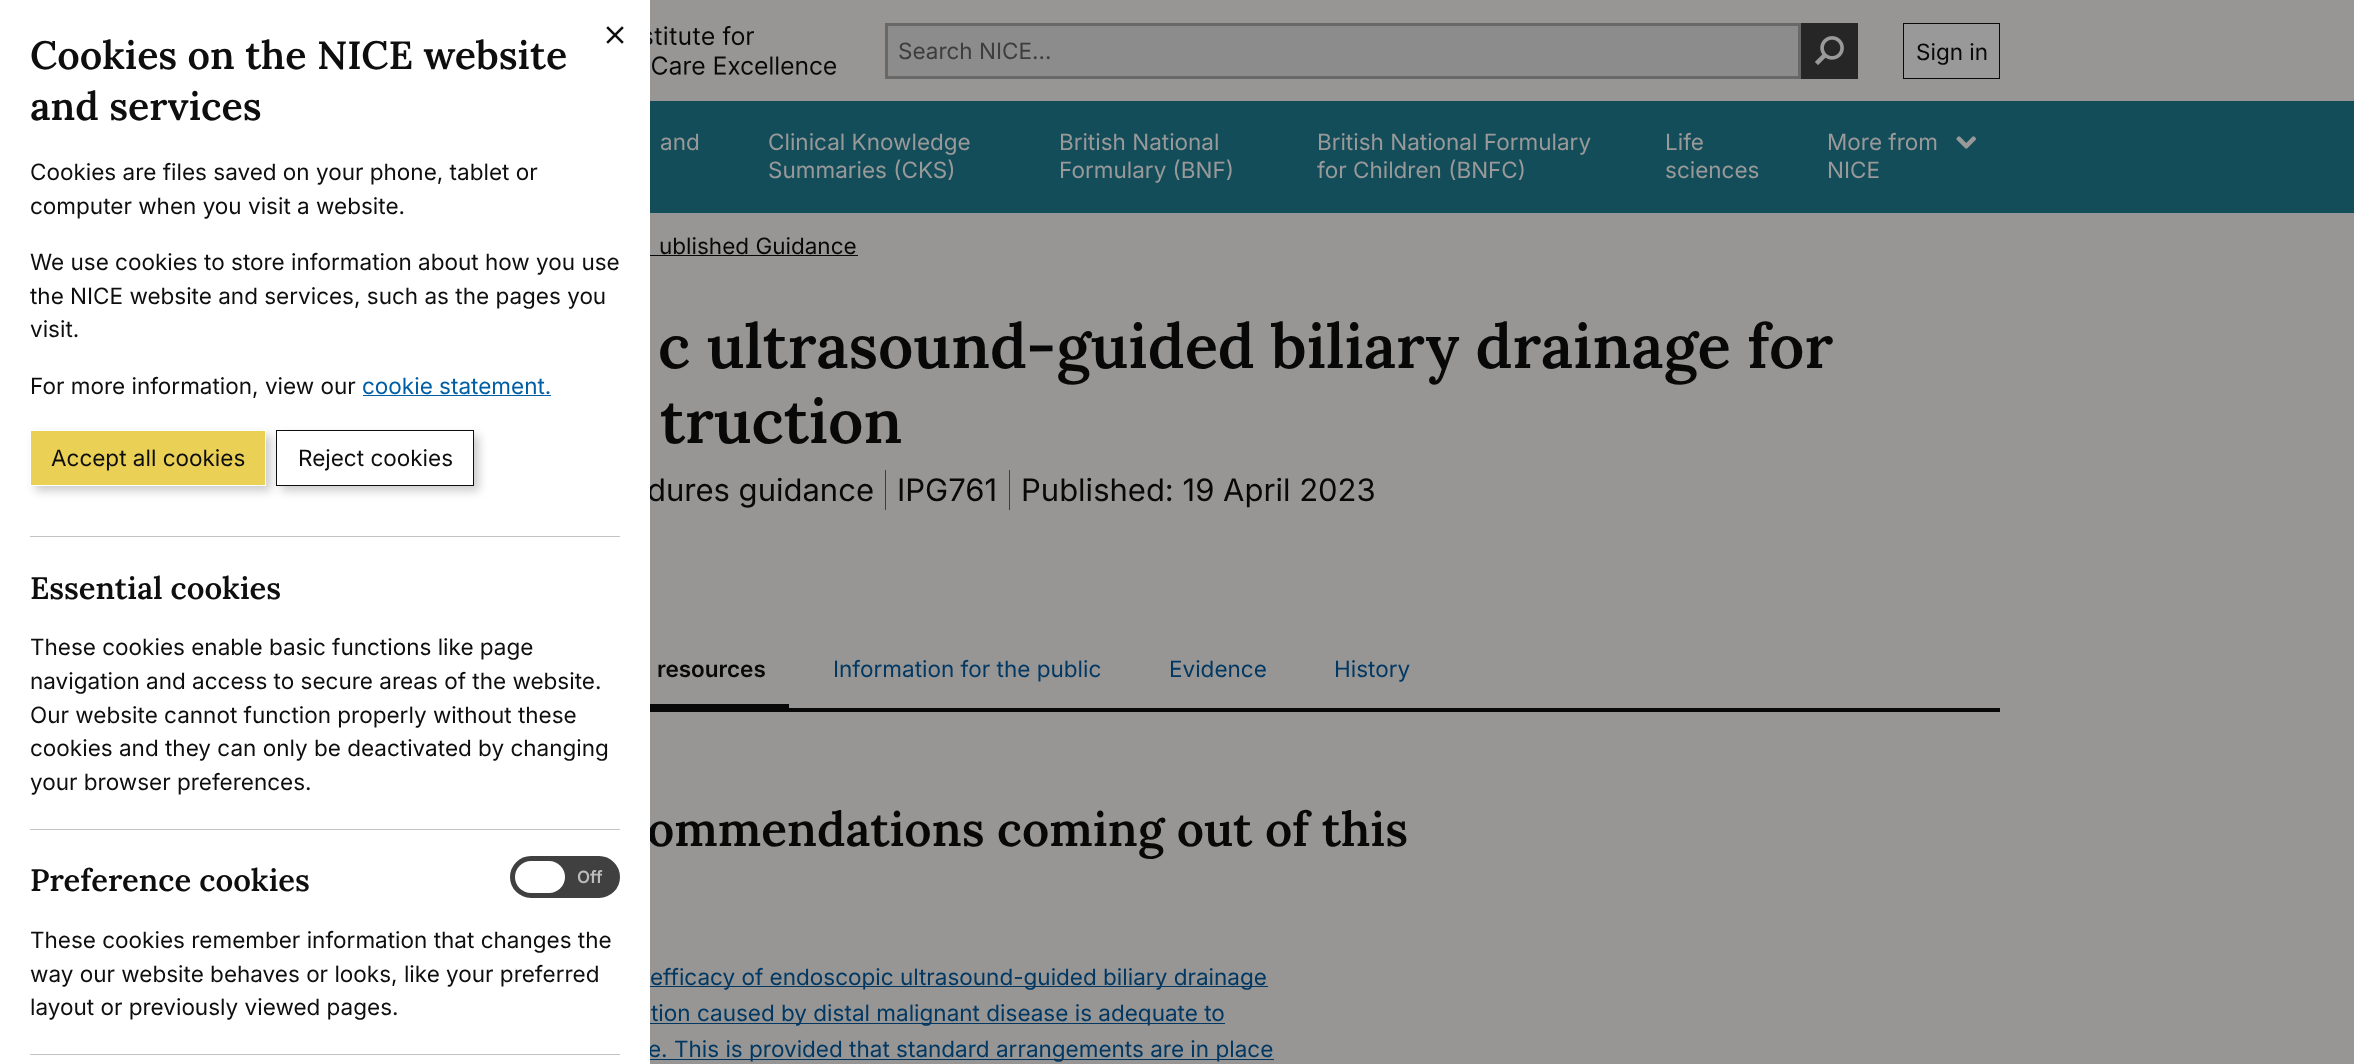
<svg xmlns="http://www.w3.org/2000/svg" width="2354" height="1064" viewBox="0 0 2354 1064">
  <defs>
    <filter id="blur1" x="-50%" y="-200%" width="200%" height="500%"><feGaussianBlur stdDeviation="5"/></filter>
  </defs>
  <rect width="100%" height="100%" fill="#979695"/>
  <rect x="645" y="255" width="213" height="1" fill="#080808"/>
  <text x="647" y="501" font-family="Inter" font-size="31" fill="#080808">dures guidance</text>
  <text x="647" y="846" font-family="Lora" font-size="47.75" font-weight="600" fill="#080808">ommendations coming out of this</text>
  <rect x="650" y="1059" width="624" height="1" fill="#003863"/>
  <text x="648" y="1057" font-family="Inter" font-size="22.5" fill="#003863">e. This is provided that standard arrangements are in place</text>
  <rect x="0" y="0" width="650" height="1064" fill="#ffffff"/>
  <image x="606" y="26" width="18" height="18" href="img1.png"/>
  <text x="30" y="69" font-family="Lora" font-size="39.4" font-weight="600" fill="#0e0e0e">Cookies on the NICE website</text>
  <text x="30" y="120" font-family="Lora" font-size="39.4" font-weight="600" fill="#0e0e0e">and services</text>
  <text x="30" y="180" font-family="Inter" font-size="22.5" fill="#0e0e0e">Cookies are files saved on your phone, tablet or</text>
  <text x="30" y="214" font-family="Inter" font-size="22.5" fill="#0e0e0e">computer when you visit a website.</text>
  <text x="30" y="270" font-family="Inter" font-size="22.5" fill="#0e0e0e">We use cookies to store information about how you use</text>
  <text x="30" y="304" font-family="Inter" font-size="22.5" fill="#0e0e0e">the NICE website and services, such as the pages you</text>
  <text x="30" y="337" font-family="Inter" font-size="22.5" fill="#0e0e0e">visit.</text>
  <text x="30" y="394" font-family="Inter" font-size="22.5" fill="#0e0e0e">For more information, view our</text>
  <text x="362" y="394" font-family="Inter" font-size="22.5" fill="#005ea5">cookie statement.</text>
  <rect x="363" y="395" width="188" height="1" fill="#005ea5"/>
  <rect x="35" y="435" width="236" height="56" fill="#000000" fill-opacity="0.2" filter="url(#blur1)"/>
  <rect x="30.5" y="430.5" width="235" height="55" fill="#ead054" stroke="#ffffff"/>
  <text x="51" y="466" font-family="Inter" font-size="22.5" fill="#0e0e0e">Accept all cookies</text>
  <rect x="281" y="435" width="198" height="56" fill="#000000" fill-opacity="0.2" filter="url(#blur1)"/>
  <rect x="276.5" y="430.5" width="197" height="55" fill="#ffffff" stroke="#0e0e0e"/>
  <text x="298" y="466" font-family="Inter" font-size="22.5" fill="#0e0e0e">Reject cookies</text>
  <rect x="30" y="536" width="590" height="1" fill="#c3c3c3"/>
  <text x="30" y="599" font-family="Lora" font-size="31" font-weight="600" fill="#0e0e0e">Essential cookies</text>
  <text x="30" y="655" font-family="Inter" font-size="22.5" fill="#0e0e0e">These cookies enable basic functions like page</text>
  <text x="30" y="689" font-family="Inter" font-size="22.5" fill="#0e0e0e">navigation and access to secure areas of the website.</text>
  <text x="30" y="723" font-family="Inter" font-size="22.5" fill="#0e0e0e">Our website cannot function properly without these</text>
  <text x="30" y="756" font-family="Inter" font-size="22.5" fill="#0e0e0e">cookies and they can only be deactivated by changing</text>
  <text x="30" y="790" font-family="Inter" font-size="22.5" fill="#0e0e0e">your browser preferences.</text>
  <rect x="30" y="829" width="590" height="1" fill="#c3c3c3"/>
  <text x="30" y="891" font-family="Lora" font-size="31" font-weight="600" fill="#0e0e0e">Preference cookies</text>
  <rect x="512.5" y="858.5" width="105" height="37" rx="18.5" fill="#404040" stroke="#404040" stroke-width="5"/>
  <rect x="515" y="861" width="50" height="32" rx="16" fill="#ffffff"/>
  <text x="577" y="883" font-family="Inter" font-size="17" font-weight="600" fill="#bcbcbc">Off</text>
  <text x="30" y="948" font-family="Inter" font-size="22.5" fill="#0e0e0e">These cookies remember information that changes the</text>
  <text x="30" y="982" font-family="Inter" font-size="22.5" fill="#0e0e0e">way our website behaves or looks, like your preferred</text>
  <text x="30" y="1015" font-family="Inter" font-size="22.5" fill="#0e0e0e">layout or previously viewed pages.</text>
  <rect x="30" y="1054" width="590" height="1" fill="#c3c3c3"/>
  <image x="650" y="26" width="186" height="49" href="img2.png"/>
  <rect x="886.5" y="24.5" width="913" height="53" fill="#8c8c8c" stroke="#686868" stroke-width="3"/>
  <text x="898" y="59" font-family="Inter" font-size="22.5" fill="#3d3d3d">Search NICE…</text>
  <rect x="1801" y="23" width="57" height="56" fill="#262626"/>
  <image x="1814" y="36" width="30" height="29" href="img3.png"/>
  <rect x="1903.5" y="23.5" width="96" height="55" fill="#999999" stroke="#080808"/>
  <text x="1916" y="60" font-family="Inter" font-size="22.5" fill="#080808">Sign in</text>
  <rect x="650" y="101" width="1704" height="112" fill="#144d5a"/>
  <text x="660" y="150" font-family="Inter" font-size="22.5" fill="#999999">and</text>
  <text x="768" y="150" font-family="Inter" font-size="22.5" fill="#999999">Clinical Knowledge</text>
  <text x="768" y="178" font-family="Inter" font-size="22.5" fill="#999999">Summaries (CKS)</text>
  <text x="1059" y="150" font-family="Inter" font-size="22.5" fill="#999999">British National</text>
  <text x="1059" y="178" font-family="Inter" font-size="22.5" fill="#999999">Formulary (BNF)</text>
  <text x="1317" y="150" font-family="Inter" font-size="22.5" fill="#999999">British National Formulary</text>
  <text x="1317" y="178" font-family="Inter" font-size="22.5" fill="#999999">for Children (BNFC)</text>
  <text x="1665" y="150" font-family="Inter" font-size="22.5" fill="#999999">Life</text>
  <text x="1665" y="178" font-family="Inter" font-size="22.5" fill="#999999">sciences</text>
  <text x="1827" y="150" font-family="Inter" font-size="22.5" fill="#999999">More from</text>
  <text x="1827" y="178" font-family="Inter" font-size="22.5" fill="#999999">NICE</text>
  <image x="1956" y="136" width="20" height="13" href="img4.png"/>
  <text x="659" y="254" font-family="Inter" font-size="22.5" fill="#080808">ublished Guidance</text>
  <text x="658" y="368" font-family="Lora" font-size="61.9" font-weight="600" fill="#080808">c ultrasound-guided biliary drainage for</text>
  <text x="660" y="443" font-family="Lora" font-size="61.9" font-weight="600" fill="#080808">truction</text>
  <rect x="885" y="470" width="1" height="40" fill="#144d5a"/>
  <text x="897" y="501" font-family="Inter" font-size="31" fill="#080808">IPG761</text>
  <rect x="1009" y="470" width="1" height="40" fill="#144d5a"/>
  <text x="1021" y="501" font-family="Inter" font-size="31" fill="#080808">Published: 19 April 2023</text>
  <rect x="650" y="708" width="1350" height="4" fill="#080808"/>
  <rect x="650" y="704" width="139" height="4" fill="#080808"/>
  <text x="657" y="677" font-family="Inter" font-size="22.5" font-weight="600" fill="#080808">resources</text>
  <text x="833" y="677" font-family="Inter" font-size="22.5" fill="#003863">Information for the public</text>
  <text x="1169" y="677" font-family="Inter" font-size="22.5" fill="#003863">Evidence</text>
  <text x="1334" y="677" font-family="Inter" font-size="22.5" fill="#003863">History</text>
  <rect x="650" y="986" width="618" height="1" fill="#003863"/>
  <text x="650" y="985" font-family="Inter" font-size="22.5" fill="#003863">efficacy of endoscopic ultrasound-guided biliary drainage</text>
  <rect x="650" y="1023" width="575" height="1" fill="#003863"/>
  <text x="651" y="1021" font-family="Inter" font-size="22.5" fill="#003863">tion caused by distal malignant disease is adequate to</text>
</svg>
